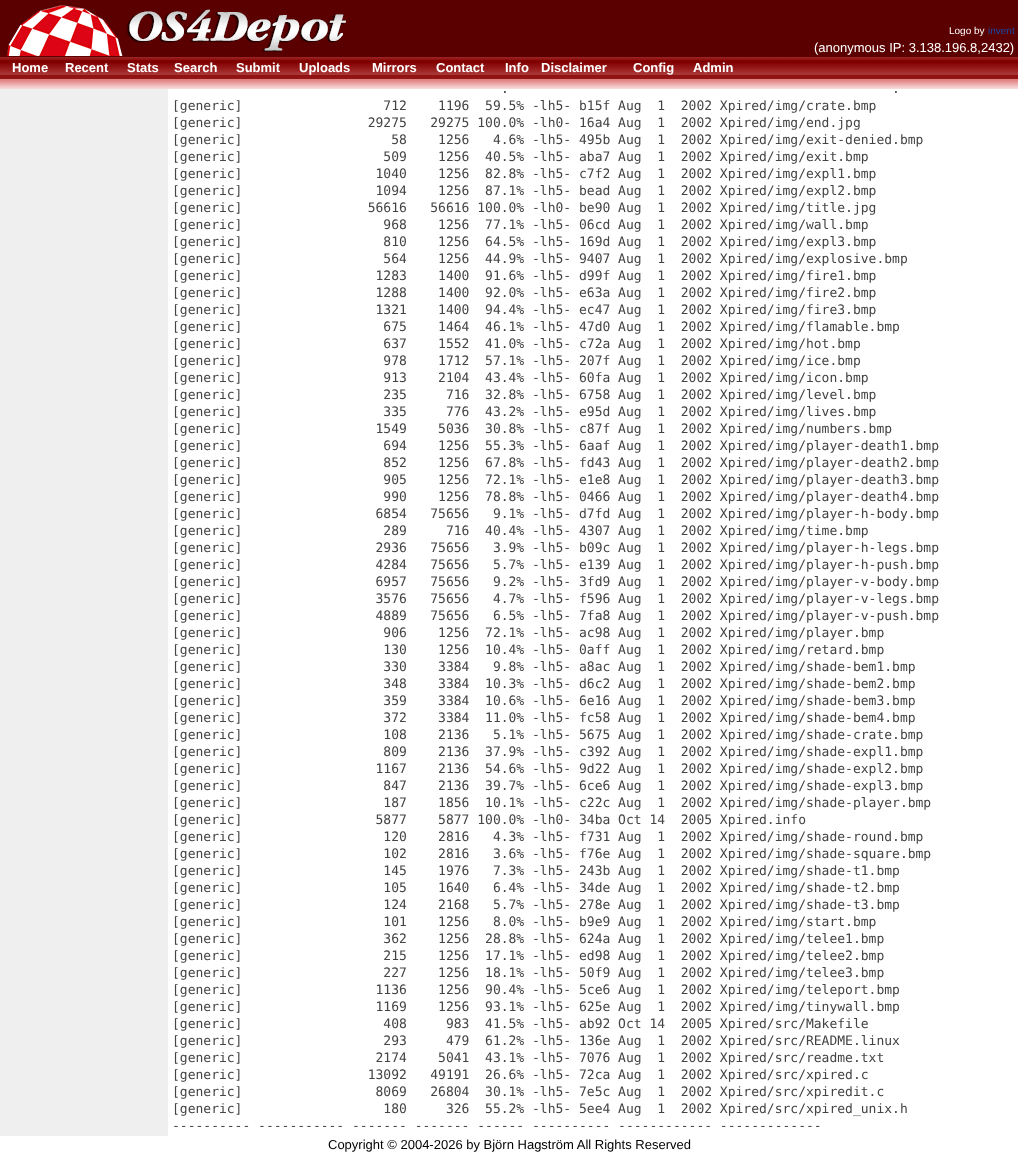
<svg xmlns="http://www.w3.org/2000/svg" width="1018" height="1154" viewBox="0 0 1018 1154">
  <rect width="100%" height="100%" fill="#ffffff"/>
  <rect x="0" y="0" width="1018" height="56" fill="#5b0000"/>
  <image x="7" y="5" width="339" height="51" href="img1.png"/>
  <text x="949" y="34" font-family="Liberation Sans" font-size="10" fill="#ffffff">Logo by</text>
  <text x="988" y="34" font-family="Liberation Sans" font-size="10" fill="#1649a7">invent</text>
  <text x="814" y="52" font-family="Liberation Sans" font-size="13" fill="#ffffff">(anonymous IP: 3.138.196.8,2432)</text>
  <image x="0" y="56" width="1018" height="23" href="img2.png"/>
  <text x="12" y="72" font-family="Liberation Sans" font-size="13" font-weight="bold" fill="#ffffff">Home</text>
  <text x="65" y="72" font-family="Liberation Sans" font-size="13" font-weight="bold" fill="#ffffff">Recent</text>
  <text x="127" y="72" font-family="Liberation Sans" font-size="13" font-weight="bold" fill="#ffffff">Stats</text>
  <text x="174" y="72" font-family="Liberation Sans" font-size="13" font-weight="bold" fill="#ffffff">Search</text>
  <text x="236" y="72" font-family="Liberation Sans" font-size="13" font-weight="bold" fill="#ffffff">Submit</text>
  <text x="299" y="72" font-family="Liberation Sans" font-size="13" font-weight="bold" fill="#ffffff">Uploads</text>
  <text x="372" y="72" font-family="Liberation Sans" font-size="13" font-weight="bold" fill="#ffffff">Mirrors</text>
  <text x="436" y="72" font-family="Liberation Sans" font-size="13" font-weight="bold" fill="#ffffff">Contact</text>
  <text x="505" y="72" font-family="Liberation Sans" font-size="13" font-weight="bold" fill="#ffffff">Info</text>
  <text x="541" y="72" font-family="Liberation Sans" font-size="13" font-weight="bold" fill="#ffffff">Disclaimer</text>
  <text x="633" y="72" font-family="Liberation Sans" font-size="13" font-weight="bold" fill="#ffffff">Config</text>
  <text x="693" y="72" font-family="Liberation Sans" font-size="13" font-weight="bold" fill="#ffffff">Admin</text>
  <rect x="0" y="79" width="1018" height="1" fill="#e18080"/>
  <image x="0" y="80" width="1018" height="9" href="img3.png"/>
  <rect x="0" y="89" width="168" height="1047" fill="#efefef"/>
  <text x="501" y="93" font-family="DejaVu Sans Mono" font-size="13" fill="#444444">.</text>
  <text x="892" y="93" font-family="DejaVu Sans Mono" font-size="13" fill="#444444">.</text>
  <text x="172" y="110" font-family="DejaVu Sans Mono" font-size="13" fill="#444444" xml:space="preserve">[generic]                  712    1196  59.5% -lh5- b15f Aug  1  2002 Xpired/img/crate.bmp</text>
  <text x="172" y="127" font-family="DejaVu Sans Mono" font-size="13" fill="#444444" xml:space="preserve">[generic]                29275   29275 100.0% -lh0- 16a4 Aug  1  2002 Xpired/img/end.jpg</text>
  <text x="172" y="144" font-family="DejaVu Sans Mono" font-size="13" fill="#444444" xml:space="preserve">[generic]                   58    1256   4.6% -lh5- 495b Aug  1  2002 Xpired/img/exit-denied.bmp</text>
  <text x="172" y="161" font-family="DejaVu Sans Mono" font-size="13" fill="#444444" xml:space="preserve">[generic]                  509    1256  40.5% -lh5- aba7 Aug  1  2002 Xpired/img/exit.bmp</text>
  <text x="172" y="178" font-family="DejaVu Sans Mono" font-size="13" fill="#444444" xml:space="preserve">[generic]                 1040    1256  82.8% -lh5- c7f2 Aug  1  2002 Xpired/img/expl1.bmp</text>
  <text x="172" y="195" font-family="DejaVu Sans Mono" font-size="13" fill="#444444" xml:space="preserve">[generic]                 1094    1256  87.1% -lh5- bead Aug  1  2002 Xpired/img/expl2.bmp</text>
  <text x="172" y="212" font-family="DejaVu Sans Mono" font-size="13" fill="#444444" xml:space="preserve">[generic]                56616   56616 100.0% -lh0- be90 Aug  1  2002 Xpired/img/title.jpg</text>
  <text x="172" y="229" font-family="DejaVu Sans Mono" font-size="13" fill="#444444" xml:space="preserve">[generic]                  968    1256  77.1% -lh5- 06cd Aug  1  2002 Xpired/img/wall.bmp</text>
  <text x="172" y="246" font-family="DejaVu Sans Mono" font-size="13" fill="#444444" xml:space="preserve">[generic]                  810    1256  64.5% -lh5- 169d Aug  1  2002 Xpired/img/expl3.bmp</text>
  <text x="172" y="263" font-family="DejaVu Sans Mono" font-size="13" fill="#444444" xml:space="preserve">[generic]                  564    1256  44.9% -lh5- 9407 Aug  1  2002 Xpired/img/explosive.bmp</text>
  <text x="172" y="280" font-family="DejaVu Sans Mono" font-size="13" fill="#444444" xml:space="preserve">[generic]                 1283    1400  91.6% -lh5- d99f Aug  1  2002 Xpired/img/fire1.bmp</text>
  <text x="172" y="297" font-family="DejaVu Sans Mono" font-size="13" fill="#444444" xml:space="preserve">[generic]                 1288    1400  92.0% -lh5- e63a Aug  1  2002 Xpired/img/fire2.bmp</text>
  <text x="172" y="314" font-family="DejaVu Sans Mono" font-size="13" fill="#444444" xml:space="preserve">[generic]                 1321    1400  94.4% -lh5- ec47 Aug  1  2002 Xpired/img/fire3.bmp</text>
  <text x="172" y="331" font-family="DejaVu Sans Mono" font-size="13" fill="#444444" xml:space="preserve">[generic]                  675    1464  46.1% -lh5- 47d0 Aug  1  2002 Xpired/img/flamable.bmp</text>
  <text x="172" y="348" font-family="DejaVu Sans Mono" font-size="13" fill="#444444" xml:space="preserve">[generic]                  637    1552  41.0% -lh5- c72a Aug  1  2002 Xpired/img/hot.bmp</text>
  <text x="172" y="365" font-family="DejaVu Sans Mono" font-size="13" fill="#444444" xml:space="preserve">[generic]                  978    1712  57.1% -lh5- 207f Aug  1  2002 Xpired/img/ice.bmp</text>
  <text x="172" y="382" font-family="DejaVu Sans Mono" font-size="13" fill="#444444" xml:space="preserve">[generic]                  913    2104  43.4% -lh5- 60fa Aug  1  2002 Xpired/img/icon.bmp</text>
  <text x="172" y="399" font-family="DejaVu Sans Mono" font-size="13" fill="#444444" xml:space="preserve">[generic]                  235     716  32.8% -lh5- 6758 Aug  1  2002 Xpired/img/level.bmp</text>
  <text x="172" y="416" font-family="DejaVu Sans Mono" font-size="13" fill="#444444" xml:space="preserve">[generic]                  335     776  43.2% -lh5- e95d Aug  1  2002 Xpired/img/lives.bmp</text>
  <text x="172" y="433" font-family="DejaVu Sans Mono" font-size="13" fill="#444444" xml:space="preserve">[generic]                 1549    5036  30.8% -lh5- c87f Aug  1  2002 Xpired/img/numbers.bmp</text>
  <text x="172" y="450" font-family="DejaVu Sans Mono" font-size="13" fill="#444444" xml:space="preserve">[generic]                  694    1256  55.3% -lh5- 6aaf Aug  1  2002 Xpired/img/player-death1.bmp</text>
  <text x="172" y="467" font-family="DejaVu Sans Mono" font-size="13" fill="#444444" xml:space="preserve">[generic]                  852    1256  67.8% -lh5- fd43 Aug  1  2002 Xpired/img/player-death2.bmp</text>
  <text x="172" y="484" font-family="DejaVu Sans Mono" font-size="13" fill="#444444" xml:space="preserve">[generic]                  905    1256  72.1% -lh5- e1e8 Aug  1  2002 Xpired/img/player-death3.bmp</text>
  <text x="172" y="501" font-family="DejaVu Sans Mono" font-size="13" fill="#444444" xml:space="preserve">[generic]                  990    1256  78.8% -lh5- 0466 Aug  1  2002 Xpired/img/player-death4.bmp</text>
  <text x="172" y="518" font-family="DejaVu Sans Mono" font-size="13" fill="#444444" xml:space="preserve">[generic]                 6854   75656   9.1% -lh5- d7fd Aug  1  2002 Xpired/img/player-h-body.bmp</text>
  <text x="172" y="535" font-family="DejaVu Sans Mono" font-size="13" fill="#444444" xml:space="preserve">[generic]                  289     716  40.4% -lh5- 4307 Aug  1  2002 Xpired/img/time.bmp</text>
  <text x="172" y="552" font-family="DejaVu Sans Mono" font-size="13" fill="#444444" xml:space="preserve">[generic]                 2936   75656   3.9% -lh5- b09c Aug  1  2002 Xpired/img/player-h-legs.bmp</text>
  <text x="172" y="569" font-family="DejaVu Sans Mono" font-size="13" fill="#444444" xml:space="preserve">[generic]                 4284   75656   5.7% -lh5- e139 Aug  1  2002 Xpired/img/player-h-push.bmp</text>
  <text x="172" y="586" font-family="DejaVu Sans Mono" font-size="13" fill="#444444" xml:space="preserve">[generic]                 6957   75656   9.2% -lh5- 3fd9 Aug  1  2002 Xpired/img/player-v-body.bmp</text>
  <text x="172" y="603" font-family="DejaVu Sans Mono" font-size="13" fill="#444444" xml:space="preserve">[generic]                 3576   75656   4.7% -lh5- f596 Aug  1  2002 Xpired/img/player-v-legs.bmp</text>
  <text x="172" y="620" font-family="DejaVu Sans Mono" font-size="13" fill="#444444" xml:space="preserve">[generic]                 4889   75656   6.5% -lh5- 7fa8 Aug  1  2002 Xpired/img/player-v-push.bmp</text>
  <text x="172" y="637" font-family="DejaVu Sans Mono" font-size="13" fill="#444444" xml:space="preserve">[generic]                  906    1256  72.1% -lh5- ac98 Aug  1  2002 Xpired/img/player.bmp</text>
  <text x="172" y="654" font-family="DejaVu Sans Mono" font-size="13" fill="#444444" xml:space="preserve">[generic]                  130    1256  10.4% -lh5- 0aff Aug  1  2002 Xpired/img/retard.bmp</text>
  <text x="172" y="671" font-family="DejaVu Sans Mono" font-size="13" fill="#444444" xml:space="preserve">[generic]                  330    3384   9.8% -lh5- a8ac Aug  1  2002 Xpired/img/shade-bem1.bmp</text>
  <text x="172" y="688" font-family="DejaVu Sans Mono" font-size="13" fill="#444444" xml:space="preserve">[generic]                  348    3384  10.3% -lh5- d6c2 Aug  1  2002 Xpired/img/shade-bem2.bmp</text>
  <text x="172" y="705" font-family="DejaVu Sans Mono" font-size="13" fill="#444444" xml:space="preserve">[generic]                  359    3384  10.6% -lh5- 6e16 Aug  1  2002 Xpired/img/shade-bem3.bmp</text>
  <text x="172" y="722" font-family="DejaVu Sans Mono" font-size="13" fill="#444444" xml:space="preserve">[generic]                  372    3384  11.0% -lh5- fc58 Aug  1  2002 Xpired/img/shade-bem4.bmp</text>
  <text x="172" y="739" font-family="DejaVu Sans Mono" font-size="13" fill="#444444" xml:space="preserve">[generic]                  108    2136   5.1% -lh5- 5675 Aug  1  2002 Xpired/img/shade-crate.bmp</text>
  <text x="172" y="756" font-family="DejaVu Sans Mono" font-size="13" fill="#444444" xml:space="preserve">[generic]                  809    2136  37.9% -lh5- c392 Aug  1  2002 Xpired/img/shade-expl1.bmp</text>
  <text x="172" y="773" font-family="DejaVu Sans Mono" font-size="13" fill="#444444" xml:space="preserve">[generic]                 1167    2136  54.6% -lh5- 9d22 Aug  1  2002 Xpired/img/shade-expl2.bmp</text>
  <text x="172" y="790" font-family="DejaVu Sans Mono" font-size="13" fill="#444444" xml:space="preserve">[generic]                  847    2136  39.7% -lh5- 6ce6 Aug  1  2002 Xpired/img/shade-expl3.bmp</text>
  <text x="172" y="807" font-family="DejaVu Sans Mono" font-size="13" fill="#444444" xml:space="preserve">[generic]                  187    1856  10.1% -lh5- c22c Aug  1  2002 Xpired/img/shade-player.bmp</text>
  <text x="172" y="824" font-family="DejaVu Sans Mono" font-size="13" fill="#444444" xml:space="preserve">[generic]                 5877    5877 100.0% -lh0- 34ba Oct 14  2005 Xpired.info</text>
  <text x="172" y="841" font-family="DejaVu Sans Mono" font-size="13" fill="#444444" xml:space="preserve">[generic]                  120    2816   4.3% -lh5- f731 Aug  1  2002 Xpired/img/shade-round.bmp</text>
  <text x="172" y="858" font-family="DejaVu Sans Mono" font-size="13" fill="#444444" xml:space="preserve">[generic]                  102    2816   3.6% -lh5- f76e Aug  1  2002 Xpired/img/shade-square.bmp</text>
  <text x="172" y="875" font-family="DejaVu Sans Mono" font-size="13" fill="#444444" xml:space="preserve">[generic]                  145    1976   7.3% -lh5- 243b Aug  1  2002 Xpired/img/shade-t1.bmp</text>
  <text x="172" y="892" font-family="DejaVu Sans Mono" font-size="13" fill="#444444" xml:space="preserve">[generic]                  105    1640   6.4% -lh5- 34de Aug  1  2002 Xpired/img/shade-t2.bmp</text>
  <text x="172" y="909" font-family="DejaVu Sans Mono" font-size="13" fill="#444444" xml:space="preserve">[generic]                  124    2168   5.7% -lh5- 278e Aug  1  2002 Xpired/img/shade-t3.bmp</text>
  <text x="172" y="926" font-family="DejaVu Sans Mono" font-size="13" fill="#444444" xml:space="preserve">[generic]                  101    1256   8.0% -lh5- b9e9 Aug  1  2002 Xpired/img/start.bmp</text>
  <text x="172" y="943" font-family="DejaVu Sans Mono" font-size="13" fill="#444444" xml:space="preserve">[generic]                  362    1256  28.8% -lh5- 624a Aug  1  2002 Xpired/img/telee1.bmp</text>
  <text x="172" y="960" font-family="DejaVu Sans Mono" font-size="13" fill="#444444" xml:space="preserve">[generic]                  215    1256  17.1% -lh5- ed98 Aug  1  2002 Xpired/img/telee2.bmp</text>
  <text x="172" y="977" font-family="DejaVu Sans Mono" font-size="13" fill="#444444" xml:space="preserve">[generic]                  227    1256  18.1% -lh5- 50f9 Aug  1  2002 Xpired/img/telee3.bmp</text>
  <text x="172" y="994" font-family="DejaVu Sans Mono" font-size="13" fill="#444444" xml:space="preserve">[generic]                 1136    1256  90.4% -lh5- 5ce6 Aug  1  2002 Xpired/img/teleport.bmp</text>
  <text x="172" y="1011" font-family="DejaVu Sans Mono" font-size="13" fill="#444444" xml:space="preserve">[generic]                 1169    1256  93.1% -lh5- 625e Aug  1  2002 Xpired/img/tinywall.bmp</text>
  <text x="172" y="1028" font-family="DejaVu Sans Mono" font-size="13" fill="#444444" xml:space="preserve">[generic]                  408     983  41.5% -lh5- ab92 Oct 14  2005 Xpired/src/Makefile</text>
  <text x="172" y="1045" font-family="DejaVu Sans Mono" font-size="13" fill="#444444" xml:space="preserve">[generic]                  293     479  61.2% -lh5- 136e Aug  1  2002 Xpired/src/README.linux</text>
  <text x="172" y="1062" font-family="DejaVu Sans Mono" font-size="13" fill="#444444" xml:space="preserve">[generic]                 2174    5041  43.1% -lh5- 7076 Aug  1  2002 Xpired/src/readme.txt</text>
  <text x="172" y="1079" font-family="DejaVu Sans Mono" font-size="13" fill="#444444" xml:space="preserve">[generic]                13092   49191  26.6% -lh5- 72ca Aug  1  2002 Xpired/src/xpired.c</text>
  <text x="172" y="1096" font-family="DejaVu Sans Mono" font-size="13" fill="#444444" xml:space="preserve">[generic]                 8069   26804  30.1% -lh5- 7e5c Aug  1  2002 Xpired/src/xpiredit.c</text>
  <text x="172" y="1113" font-family="DejaVu Sans Mono" font-size="13" fill="#444444" xml:space="preserve">[generic]                  180     326  55.2% -lh5- 5ee4 Aug  1  2002 Xpired/src/xpired_unix.h</text>
  <text x="172" y="1130" font-family="DejaVu Sans Mono" font-size="13" fill="#444444">---------- ----------- ------- ------- ------ ---------- ------------ -------------</text>
  <text x="328" y="1149" font-family="Liberation Sans" font-size="13" fill="#000000">Copyright © 2004-2026 by Björn Hagström All Rights Reserved</text>
</svg>
